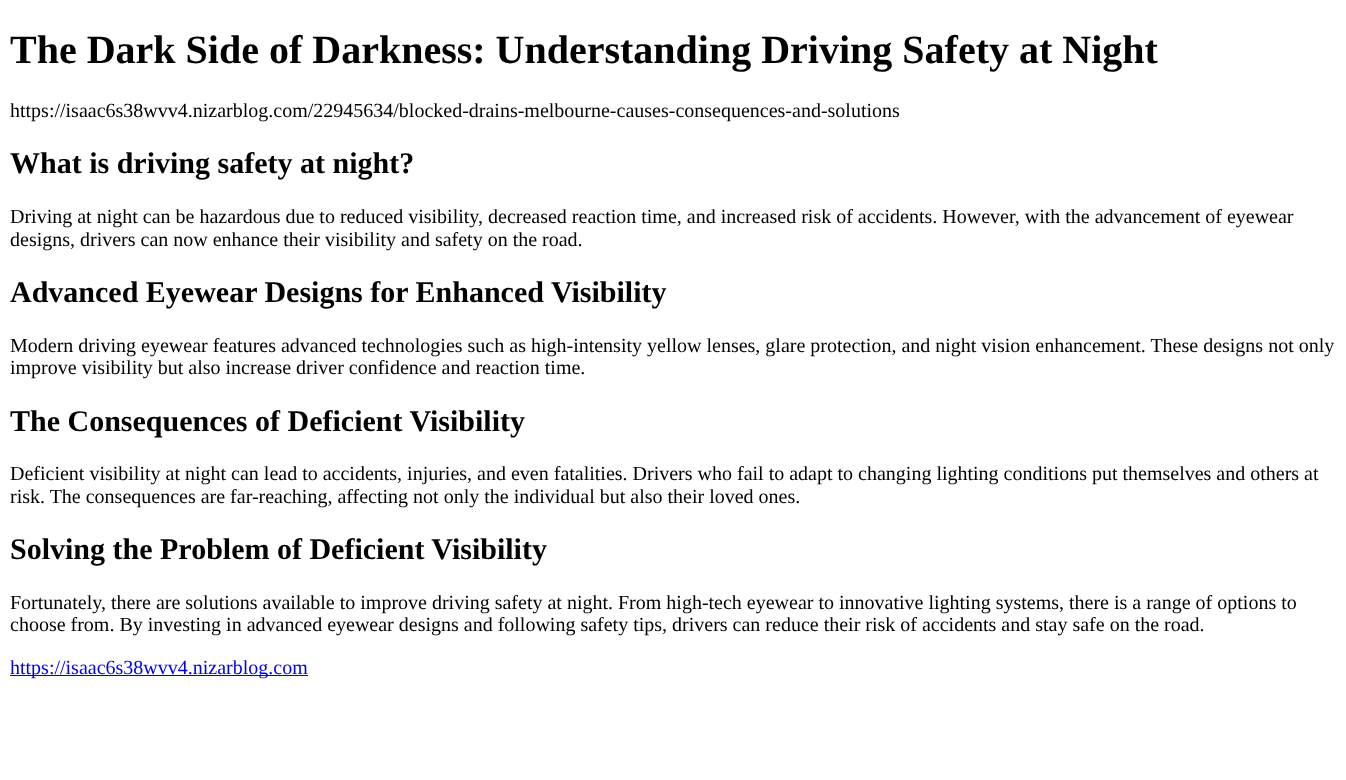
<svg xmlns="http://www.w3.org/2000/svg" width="1346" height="780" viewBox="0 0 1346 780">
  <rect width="100%" height="100%" fill="#ffffff"/>
  <text x="10" y="63" font-family="Liberation Serif" font-size="40" font-weight="bold" fill="#000000">The Dark Side of Darkness: Understanding Driving Safety at Night</text>
  <text x="10" y="117" font-family="Liberation Serif" font-size="20" fill="#000000">https://isaac6s38wvv4.nizarblog.com/22945634/blocked-drains-melbourne-causes-consequences-and-solutions</text>
  <text x="10" y="173" font-family="Liberation Serif" font-size="30" font-weight="bold" fill="#000000">What is driving safety at night?</text>
  <text x="10" y="223" font-family="Liberation Serif" font-size="20" fill="#000000">Driving at night can be hazardous due to reduced visibility, decreased reaction time, and increased risk of accidents. However, with the advancement of eyewear</text>
  <text x="10" y="246" font-family="Liberation Serif" font-size="20" fill="#000000">designs, drivers can now enhance their visibility and safety on the road.</text>
  <text x="10" y="302" font-family="Liberation Serif" font-size="30" font-weight="bold" fill="#000000">Advanced Eyewear Designs for Enhanced Visibility</text>
  <text x="10" y="352" font-family="Liberation Serif" font-size="20" fill="#000000">Modern driving eyewear features advanced technologies such as high-intensity yellow lenses, glare protection, and night vision enhancement. These designs not only</text>
  <text x="10" y="374" font-family="Liberation Serif" font-size="20" fill="#000000">improve visibility but also increase driver confidence and reaction time.</text>
  <text x="10" y="431" font-family="Liberation Serif" font-size="30" font-weight="bold" fill="#000000">The Consequences of Deficient Visibility</text>
  <text x="10" y="480" font-family="Liberation Serif" font-size="20" fill="#000000">Deficient visibility at night can lead to accidents, injuries, and even fatalities. Drivers who fail to adapt to changing lighting conditions put themselves and others at</text>
  <text x="10" y="503" font-family="Liberation Serif" font-size="20" fill="#000000">risk. The consequences are far-reaching, affecting not only the individual but also their loved ones.</text>
  <text x="10" y="559" font-family="Liberation Serif" font-size="30" font-weight="bold" fill="#000000">Solving the Problem of Deficient Visibility</text>
  <text x="10" y="609" font-family="Liberation Serif" font-size="20" fill="#000000">Fortunately, there are solutions available to improve driving safety at night. From high-tech eyewear to innovative lighting systems, there is a range of options to</text>
  <text x="10" y="631" font-family="Liberation Serif" font-size="20" fill="#000000">choose from. By investing in advanced eyewear designs and following safety tips, drivers can reduce their risk of accidents and stay safe on the road.</text>
  <rect x="10" y="675" width="298" height="1" fill="#0000ee"/>
  <text x="10" y="674" font-family="Liberation Serif" font-size="20" fill="#0000ee">https://isaac6s38wvv4.nizarblog.com</text>
</svg>
